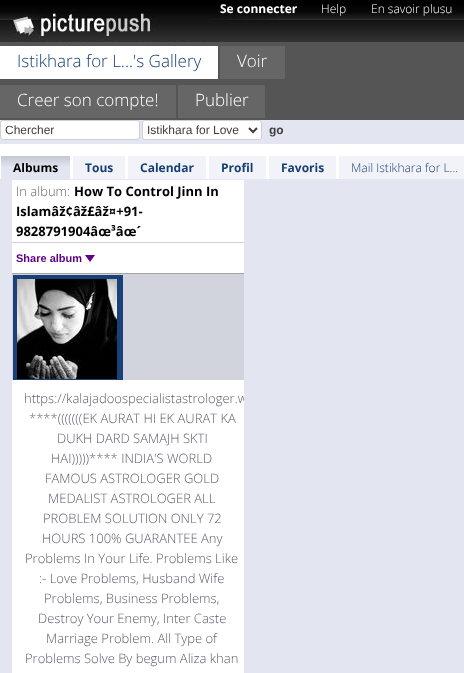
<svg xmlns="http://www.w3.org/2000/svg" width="464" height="673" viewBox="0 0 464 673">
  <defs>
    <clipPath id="clip1"><rect x="12" y="180" width="232" height="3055"/></clipPath>
  </defs>
  <rect width="100%" height="100%" fill="#e3e6f1"/>
  <image x="0" y="0" width="464" height="42" href="img1.png"/>
  <image x="13" y="8" width="264" height="34" href="img2.png"/>
  <text x="220" y="13" font-family="Open Sans" font-size="12" font-weight="bold" fill="#ffffff">Se connecter</text>
  <text x="321" y="13" font-family="Open Sans" font-size="12" font-weight="300" fill="#ffffff">Help</text>
  <text x="371" y="13" font-family="Open Sans" font-size="12" font-weight="300" fill="#ffffff">En savoir plusu</text>
  <rect x="0" y="42" width="464" height="78" fill="#555555"/>
  <rect x="0" y="46" width="218" height="33" fill="#ffffff"/>
  <text x="17" y="67" font-family="Open Sans" font-size="17" font-weight="300" fill="#163f73">Istikhara for L...'s Gallery</text>
  <rect x="220" y="46" width="65" height="33" fill="#666666"/>
  <text x="237" y="67" font-family="Open Sans" font-size="17" font-weight="300" fill="#ffffff">Voir</text>
  <rect x="0" y="85" width="176" height="33" fill="#666666"/>
  <text x="17" y="106" font-family="Open Sans" font-size="17" font-weight="300" fill="#ffffff">Creer son compte!</text>
  <rect x="178" y="85" width="87" height="33" fill="#666666"/>
  <text x="195" y="106" font-family="Open Sans" font-size="17" font-weight="300" fill="#ffffff">Publier</text>
  <rect x="0.5" y="120.5" width="139" height="19" rx="2.5" fill="#ffffff" stroke="#d0d0d0"/>
  <text x="5" y="134" font-family="Liberation Sans" font-size="12" fill="#3e3e3e">Chercher</text>
  <rect x="142.5" y="120.5" width="119" height="19" rx="2.5" fill="#ffffff" stroke="#d0d0d0"/>
  <path d="M249 128L253 132L257 128" fill="none" stroke="#3e3e3e" stroke-width="2"/>
  <text x="147" y="134" font-family="Liberation Sans" font-size="12" fill="#3e3e3e">Istikhara for Love</text>
  <text x="269" y="134" font-family="Liberation Sans" font-size="12" font-weight="bold" fill="#3e3e3e">go</text>
  <rect x="0" y="144" width="464" height="35" fill="#ffffff"/>
  <rect x="1" y="156" width="69" height="23" fill="#e3e6f1"/>
  <image x="1" y="156" width="69" height="10" href="img3.png"/>
  <text x="13" y="172" font-family="Open Sans" font-size="12" font-weight="bold" fill="#000000">Albums</text>
  <rect x="73" y="156" width="52" height="23" fill="#f1f3f9"/>
  <text x="85" y="172" font-family="Open Sans" font-size="12" font-weight="bold" fill="#163f73">Tous</text>
  <rect x="128" y="156" width="78" height="23" fill="#f1f3f9"/>
  <text x="140" y="172" font-family="Open Sans" font-size="12" font-weight="bold" fill="#163f73">Calendar</text>
  <rect x="209" y="156" width="57" height="23" fill="#f1f3f9"/>
  <text x="221" y="172" font-family="Open Sans" font-size="12" font-weight="bold" fill="#163f73">Profil</text>
  <rect x="269" y="156" width="67" height="23" fill="#f1f3f9"/>
  <text x="281" y="172" font-family="Open Sans" font-size="12" font-weight="bold" fill="#163f73">Favoris</text>
  <rect x="339" y="156" width="125" height="23" fill="#f1f3f9"/>
  <text x="351" y="172" font-family="Open Sans" font-size="12" font-weight="300" fill="#163f73">Mail Istikhara for L...</text>
  <rect x="12" y="180" width="232" height="93" fill="#ffffff"/>
  <rect x="12" y="273" width="232" height="1" fill="#a4a4a4"/>
  <text x="16" y="196" font-family="Open Sans" font-size="13" font-weight="300" fill="#666666">In album:</text>
  <text x="74" y="196" font-family="Open Sans" font-size="13" font-weight="bold" fill="#000000">How To Control Jinn In</text>
  <text x="16" y="216" font-family="Open Sans" font-size="13" font-weight="bold" fill="#000000">Islamâž¢âž£âž¤+91-</text>
  <text x="16" y="236" font-family="Open Sans" font-size="13" font-weight="bold" fill="#000000">9828791904âœ³âœ´</text>
  <rect x="12" y="242" width="232" height="1" fill="#d0d0e0"/>
  <text x="16" y="262" font-family="Liberation Sans" font-size="11" font-weight="bold" fill="#5e0085">Share album</text>
  <path d="M85 255H95L90 262Z" fill="#5e0085"/>
  <rect x="12" y="274" width="232" height="106" fill="#d1d4dd"/>
  <rect x="13" y="275" width="110" height="105" fill="#194077"/>
  <image x="17" y="279" width="100" height="100" href="img4.png"/>
  <rect x="12" y="380" width="232" height="293" fill="#ffffff"/>
  <g clip-path="url(#clip1)">
    <text x="24" y="403" font-family="Open Sans" font-size="13" font-weight="300" fill="#5a5c6c">https://kalajadoospecialistastrologer.w</text>
  </g>
  <text x="29" y="423" font-family="Open Sans" font-size="13" font-weight="300" fill="#5a5c6c">****(((((((EK AURAT HI EK AURAT KA</text>
  <text x="57" y="443" font-family="Open Sans" font-size="13" font-weight="300" fill="#5a5c6c">DUKH DARD SAMAJH SKTI</text>
  <text x="51" y="463" font-family="Open Sans" font-size="13" font-weight="300" fill="#5a5c6c">HAI)))))**** INDIA'S WORLD</text>
  <text x="45" y="483" font-family="Open Sans" font-size="13" font-weight="300" fill="#5a5c6c">FAMOUS ASTROLOGER GOLD</text>
  <text x="48" y="503" font-family="Open Sans" font-size="13" font-weight="300" fill="#5a5c6c">MEDALIST ASTROLOGER ALL</text>
  <text x="43" y="523" font-family="Open Sans" font-size="13" font-weight="300" fill="#5a5c6c">PROBLEM SOLUTION ONLY 72</text>
  <text x="42" y="543" font-family="Open Sans" font-size="13" font-weight="300" fill="#5a5c6c">HOURS 100% GUARANTEE Any</text>
  <text x="25" y="563" font-family="Open Sans" font-size="13" font-weight="300" fill="#5a5c6c">Problems In Your Life. Problems Like</text>
  <text x="39" y="583" font-family="Open Sans" font-size="13" font-weight="300" fill="#5a5c6c">:- Love Problems, Husband Wife</text>
  <text x="44" y="603" font-family="Open Sans" font-size="13" font-weight="300" fill="#5a5c6c">Problems, Business Problems,</text>
  <text x="38" y="623" font-family="Open Sans" font-size="13" font-weight="300" fill="#5a5c6c">Destroy Your Enemy, Inter Caste</text>
  <text x="46" y="643" font-family="Open Sans" font-size="13" font-weight="300" fill="#5a5c6c">Marriage Problem. All Type of</text>
  <text x="25" y="663" font-family="Open Sans" font-size="13" font-weight="300" fill="#5a5c6c">Problems Solve By begum Aliza khan</text>
</svg>
